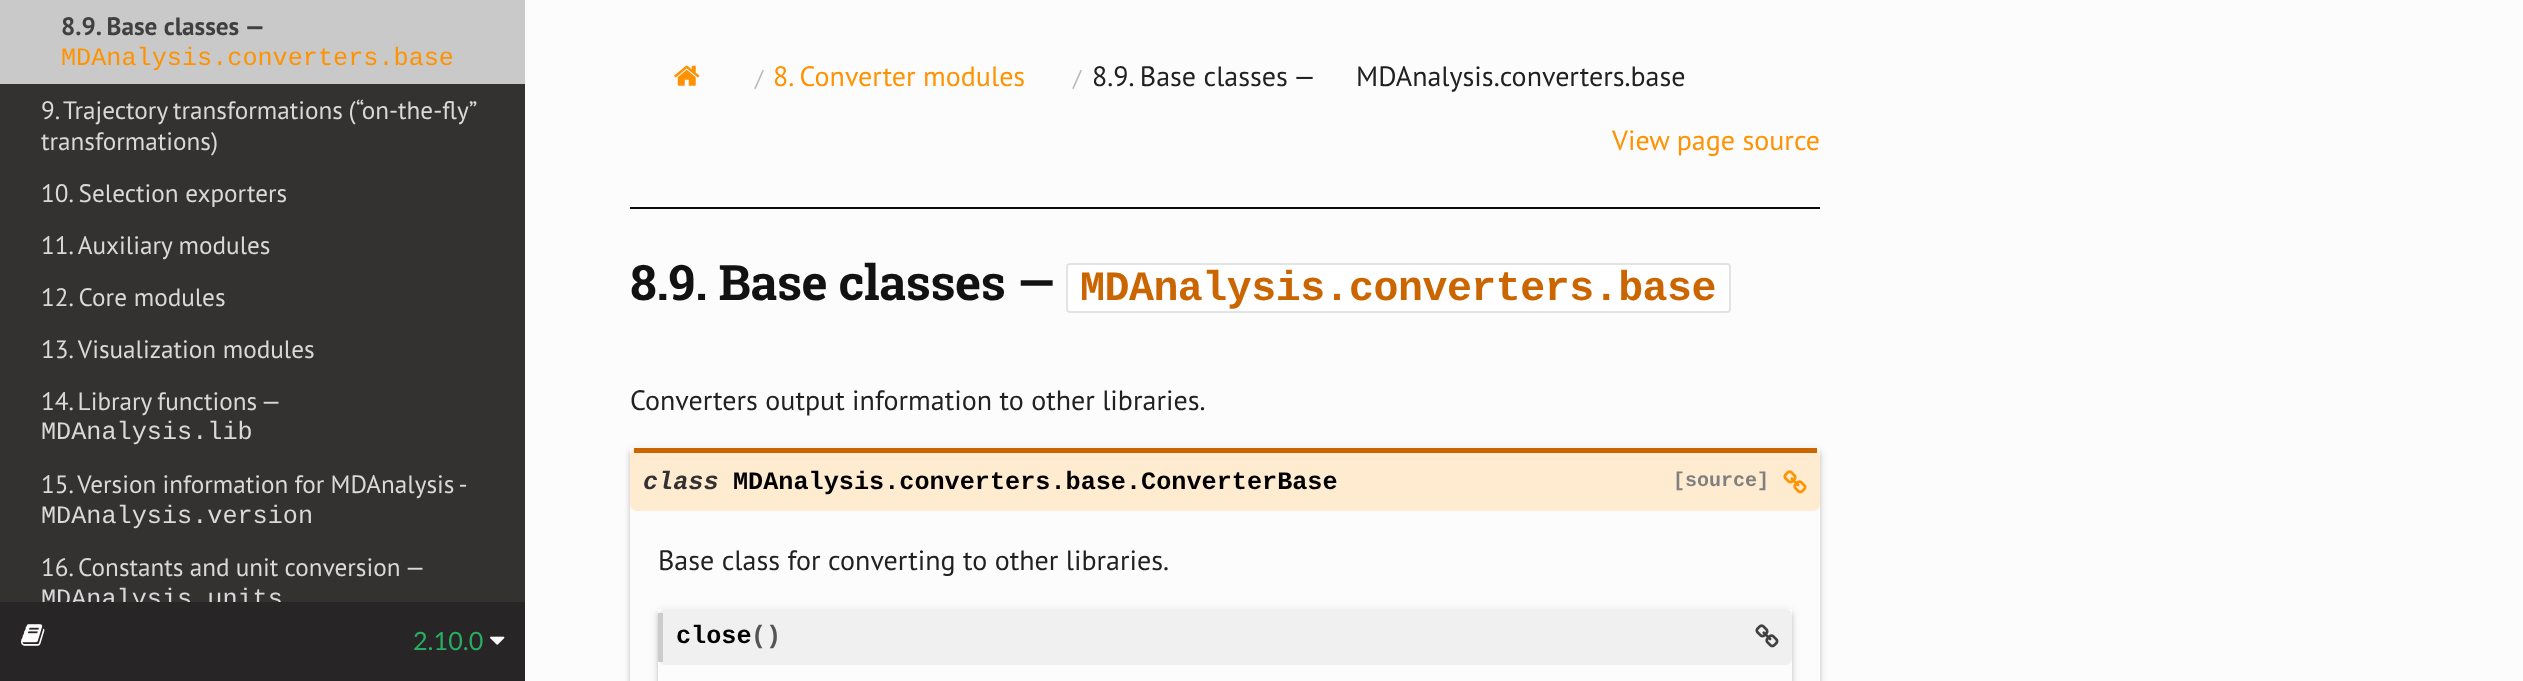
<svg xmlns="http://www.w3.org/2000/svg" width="2523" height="681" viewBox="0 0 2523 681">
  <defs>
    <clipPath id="clip1"><path d="M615 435H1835V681H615ZM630 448H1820V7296H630Z" clip-rule="evenodd"/></clipPath>
    <filter id="blur1" x="-50%" y="-200%" width="200%" height="500%"><feGaussianBlur stdDeviation="4.5"/></filter>
    <clipPath id="clip2"><path d="M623 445H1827V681H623ZM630 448H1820V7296H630Z" clip-rule="evenodd"/></clipPath>
    <filter id="blur2" x="-50%" y="-200%" width="200%" height="500%"><feGaussianBlur stdDeviation="2"/></filter>
    <clipPath id="clip3"><path d="M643 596H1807V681H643ZM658 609H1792V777H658Z" clip-rule="evenodd"/></clipPath>
    <clipPath id="clip4"><path d="M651 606H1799V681H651ZM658 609H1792V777H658Z" clip-rule="evenodd"/></clipPath>
  </defs>
  <rect width="100%" height="100%" fill="#fcfcfc"/>
  <rect x="0" y="84" width="525" height="518" fill="#343131"/>
  <rect x="0" y="0" width="525" height="84" fill="#c9c9c9"/>
  <text x="61" y="35" font-family="PT Sans" font-size="25.2" font-weight="bold" fill="#404040">8.9. Base classes —</text>
  <text x="61" y="65" font-family="Liberation Mono" font-size="25.2" fill="#ff9200">MDAnalysis.converters.base</text>
  <text x="41" y="119" word-spacing="-1" font-family="PT Sans" font-size="25.2" fill="#d9d9d9">9. Trajectory transformations (“on-the-fly”</text>
  <text x="41" y="150" font-family="PT Sans" font-size="25.2" fill="#d9d9d9">transformations)</text>
  <text x="41" y="202" font-family="PT Sans" font-size="25.2" fill="#d9d9d9">10. Selection exporters</text>
  <text x="41" y="254" font-family="PT Sans" font-size="25.2" fill="#d9d9d9">11. Auxiliary modules</text>
  <text x="41" y="306" font-family="PT Sans" font-size="25.2" fill="#d9d9d9">12. Core modules</text>
  <text x="41" y="358" font-family="PT Sans" font-size="25.2" fill="#d9d9d9">13. Visualization modules</text>
  <text x="41" y="410" word-spacing="-1" font-family="PT Sans" font-size="25.2" fill="#d9d9d9">14. Library functions —</text>
  <text x="41" y="439" font-family="Liberation Mono" font-size="25.2" fill="#d9d9d9">MDAnalysis.lib</text>
  <text x="41" y="493" word-spacing="-0.5" font-family="PT Sans" font-size="25.2" fill="#d9d9d9">15. Version information for MDAnalysis -</text>
  <text x="41" y="523" font-family="Liberation Mono" font-size="25.2" fill="#d9d9d9">MDAnalysis.version</text>
  <text x="41" y="576" word-spacing="-0.5" font-family="PT Sans" font-size="25.2" fill="#d9d9d9">16. Constants and unit conversion —</text>
  <text x="41" y="606" font-family="Liberation Mono" font-size="25.2" fill="#d9d9d9">MDAnalysis.units</text>
  <image x="674" y="65" width="26" height="21" href="img1.png"/>
  <text x="755" y="86" font-family="PT Sans" font-size="23" fill="#bbbbbb">/</text>
  <text x="773" y="86" font-family="PT Sans" font-size="28" fill="#ff9200">8. Converter modules</text>
  <text x="1073" y="86" font-family="PT Sans" font-size="23" fill="#bbbbbb">/</text>
  <text x="1092" y="86" font-family="PT Sans" font-size="28" fill="#212121">8.9. Base classes —</text>
  <text x="1356" y="86" font-family="PT Sans" font-size="28" fill="#212121">MDAnalysis.converters.base</text>
  <text x="1612" y="150" font-family="PT Sans" font-size="28" fill="#ff9200">View page source</text>
  <rect x="630" y="205" width="1190" height="2" fill="#ffffff"/>
  <rect x="630" y="207" width="1190" height="2" fill="#0a0a0a"/>
  <text x="630" y="300" font-family="Roboto Slab" font-size="49" font-weight="bold" letter-spacing="-0.5" fill="#121212">8.9. Base classes —</text>
  <rect x="1067" y="264" width="663" height="48" rx="3" fill="#ffffff" stroke="#e1e4e5" stroke-width="2"/>
  <text x="1080" y="300" font-family="Liberation Mono" font-size="41.6" font-weight="bold" letter-spacing="-0.5" fill="#ca6500">MDAnalysis.converters.base</text>
  <text x="630" y="410" font-family="PT Sans" font-size="28" fill="#212121">Converters output information to other libraries.</text>
  <g clip-path="url(#clip1)">
    <rect x="630" y="450" width="1190" height="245" fill="#000000" fill-opacity="0.12" filter="url(#blur1)"/>
  </g>
  <g clip-path="url(#clip2)">
    <rect x="630" y="452" width="1190" height="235" fill="#000000" fill-opacity="0.14" filter="url(#blur2)"/>
  </g>
  <rect x="630" y="448" width="1190" height="63" rx="7" fill="#ffebd0"/>
  <rect x="634" y="448" width="1183" height="5" fill="#ca6500"/>
  <text x="643" y="489" font-family="Liberation Mono" font-size="25.2" font-weight="bold" font-style="italic" fill="#343131">class</text>
  <text x="733" y="489" font-family="Liberation Mono" font-size="25.2" font-weight="bold" fill="#000000">MDAnalysis.converters.base.ConverterBase</text>
  <text x="1673" y="486" font-family="Liberation Mono" font-size="20" font-weight="bold" fill="#808080">[source]</text>
  <image x="1783" y="470" width="24" height="24" href="img2.png"/>
  <text x="658" y="570" font-family="PT Sans" font-size="28" fill="#212121">Base class for converting to other libraries.</text>
  <g clip-path="url(#clip3)">
    <rect x="658" y="611" width="1134" height="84" fill="#000000" fill-opacity="0.12" filter="url(#blur1)"/>
  </g>
  <g clip-path="url(#clip4)">
    <rect x="658" y="613" width="1134" height="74" fill="#000000" fill-opacity="0.14" filter="url(#blur2)"/>
  </g>
  <rect x="658" y="609" width="1134" height="56" rx="7" fill="#f0f0f0"/>
  <rect x="658" y="613" width="5" height="49" fill="#cccccc"/>
  <text x="676" y="643" font-family="Liberation Mono" font-size="25.2" font-weight="bold" fill="#000000">close</text>
  <text x="751" y="643" font-family="Liberation Mono" font-size="25.2" font-weight="bold" fill="#555555">()</text>
  <image x="1755" y="624" width="24" height="24" href="img3.png"/>
  <rect x="0" y="602" width="525" height="79" fill="#272525"/>
  <image x="21" y="624" width="24" height="22" href="img4.png"/>
  <text x="413" y="650" font-family="Lato" font-size="25.2" fill="#27ae60">2.10.0</text>
  <image x="490" y="636" width="15" height="9" href="img5.png"/>
</svg>
